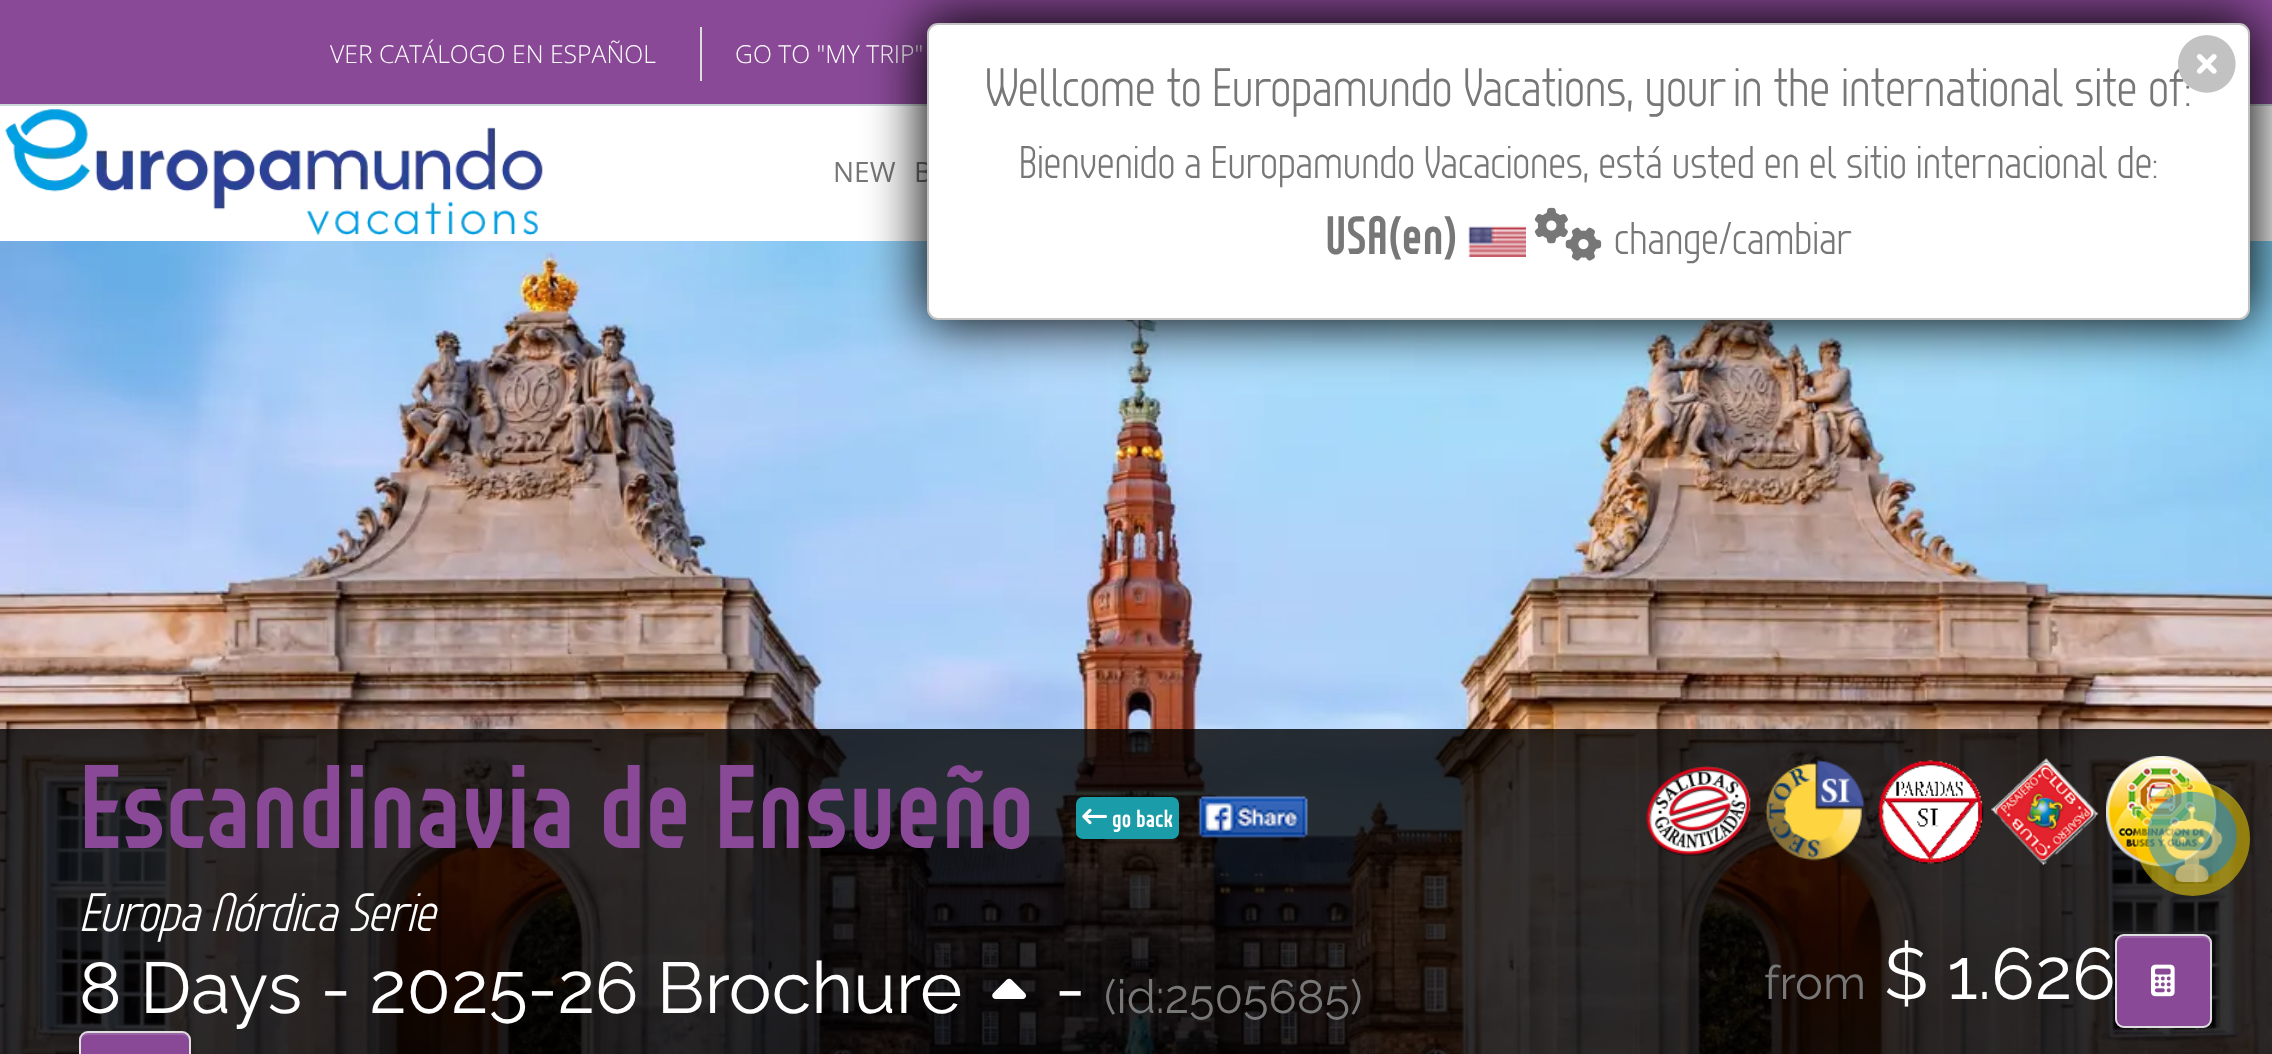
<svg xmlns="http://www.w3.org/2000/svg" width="2272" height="1054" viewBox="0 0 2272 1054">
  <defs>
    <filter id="blur1" x="-50%" y="-200%" width="200%" height="500%"><feGaussianBlur stdDeviation="28"/></filter>
  </defs>
  <rect width="100%" height="100%" fill="#ffffff"/>
  <rect x="0" y="0" width="2272" height="104" fill="#894997"/>
  <rect x="0" y="104" width="2272" height="2" fill="#cbd8d8"/>
  <text x="330" y="63" font-family="Open Sans" font-size="24.75" font-weight="300" fill="#ffffff">VER CATÁLOGO EN ESPAÑOL</text>
  <rect x="700" y="27" width="2" height="54" fill="#dedede"/>
  <text x="735" y="63" font-family="Open Sans" font-size="24.75" font-weight="300" fill="#ffffff">GO TO "MY TRIP"</text>
  <image x="5" y="109" width="538" height="127" href="img1.png"/>
  <text x="833" y="182" font-family="Open Sans" font-size="28" fill="#777777">NEW</text>
  <text x="914" y="182" font-family="Open Sans" font-size="28" fill="#777777">B</text>
  <image x="0" y="241" width="2272" height="813" href="img2.png"/>
  <rect x="0" y="729" width="2272" height="325" fill="#000000" fill-opacity="0.8"/>
  <text x="79" y="848" font-family="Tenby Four" font-size="118.75" font-weight="bold" fill="#894997">Escandinavia de Ensueño</text>
  <rect x="1076" y="797" width="103" height="42" rx="7" fill="#1a9ca9"/>
  <image x="1082" y="808" width="25" height="17" href="img3.png"/>
  <text x="1112" y="827" font-family="Tenby Four" font-size="24.75" font-weight="bold" fill="#ffffff">go back</text>
  <image x="1198" y="796" width="110" height="42" href="img4.png"/>
  <text x="79" y="931" font-family="Tenby Four" font-size="54" font-weight="300" font-style="italic" fill="#ffffff">Europa Nórdica Serie</text>
  <text x="79" y="1013" font-family="Raleway" font-size="72" font-weight="100" fill="#ffffff">8 Days - 2025-26 Brochure</text>
  <image x="992" y="978" width="34" height="21" href="img5.png"/>
  <text x="1055" y="1013" font-family="Raleway" font-size="72" font-weight="100" fill="#ffffff">-</text>
  <text x="1104" y="1013" font-family="Raleway" font-size="46.75" font-weight="100" fill="#777777">(id:2505685)</text>
  <rect x="79" y="1031" width="112" height="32" rx="9" fill="#894997"/>
  <path d="M88 1035H182C186 1035 189 1038 189 1042C189 1029 176 1033 166 1033H104C94 1033 81 1029 81 1042C81 1038 84 1035 88 1035Z" fill="#9b64a7"/>
  <rect x="80" y="1032" width="110" height="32" rx="8" fill="none" stroke="#dedede" stroke-width="2"/>
  <image x="1646" y="766" width="105" height="90" href="img6.png"/>
  <image x="1765" y="760" width="100" height="101" href="img7.png"/>
  <image x="1878" y="760" width="106" height="104" href="img8.png"/>
  <image x="1991" y="758" width="108" height="108" href="img9.png"/>
  <image x="2106" y="756" width="111" height="111" href="img10.png"/>
  <text x="1764" y="999" font-family="Raleway" font-size="46.75" font-weight="100" fill="#777777">from</text>
  <text x="1884" y="999" font-family="Raleway" font-size="72" font-weight="100" fill="#ffffff">$ 1.626</text>
  <rect x="2115" y="934" width="97" height="94" rx="9" fill="#894997"/>
  <path d="M2124 938H2203C2206 938 2210 941 2210 945C2210 933 2199 936 2190 936H2137C2128 936 2117 933 2117 945C2117 941 2120 938 2124 938Z" fill="#9b64a7"/>
  <rect x="2116" y="935" width="95" height="92" rx="8" fill="none" stroke="#dedede" stroke-width="2"/>
  <image x="2151" y="964" width="24" height="33" href="img11.png"/>
  <rect x="923" y="18" width="1332" height="306" rx="16" fill="#000000" filter="url(#blur1)"/>
  <rect x="928" y="24" width="1321" height="295" rx="10" fill="#ffffff" stroke="#c2c2c2" stroke-width="2"/>
  <text x="985" y="106" font-family="Tenby Four" font-size="54" font-weight="300" fill="#777777">Wellcome to Europamundo Vacations, your in the international site of:</text>
  <image x="2178" y="35" width="58" height="58" href="img12.png"/>
  <text x="1019" y="178" font-family="Tenby Four" font-size="45.9" font-weight="300" fill="#777777">Bienvenido a Europamundo Vacaciones, está usted en el sitio internacional de:</text>
  <text x="1325" y="254" font-family="Tenby Four" font-size="54" font-weight="bold" fill="#777777">USA(en)</text>
  <image x="1468" y="226" width="58" height="31" href="img13.png"/>
  <image x="1534" y="207" width="68" height="54" href="img14.png"/>
  <text x="1614" y="254" font-family="Tenby Four" font-size="45.9" font-weight="300" fill="#777777">change/cambiar</text>
  <circle cx="2192.5" cy="838.5" r="57.5" fill="#ffdd00" fill-opacity="0.5"/>
  <path d="M2193 783C2224 783 2250 809 2250 839C2250 828 2247 816 2240 806C2208 759 2134 782 2135 839C2135 809 2161 783 2193 783Z" fill="#ffffff" fill-opacity="0.07"/>
  <image x="2146" y="792" width="91" height="90" href="img15.png"/>
</svg>
